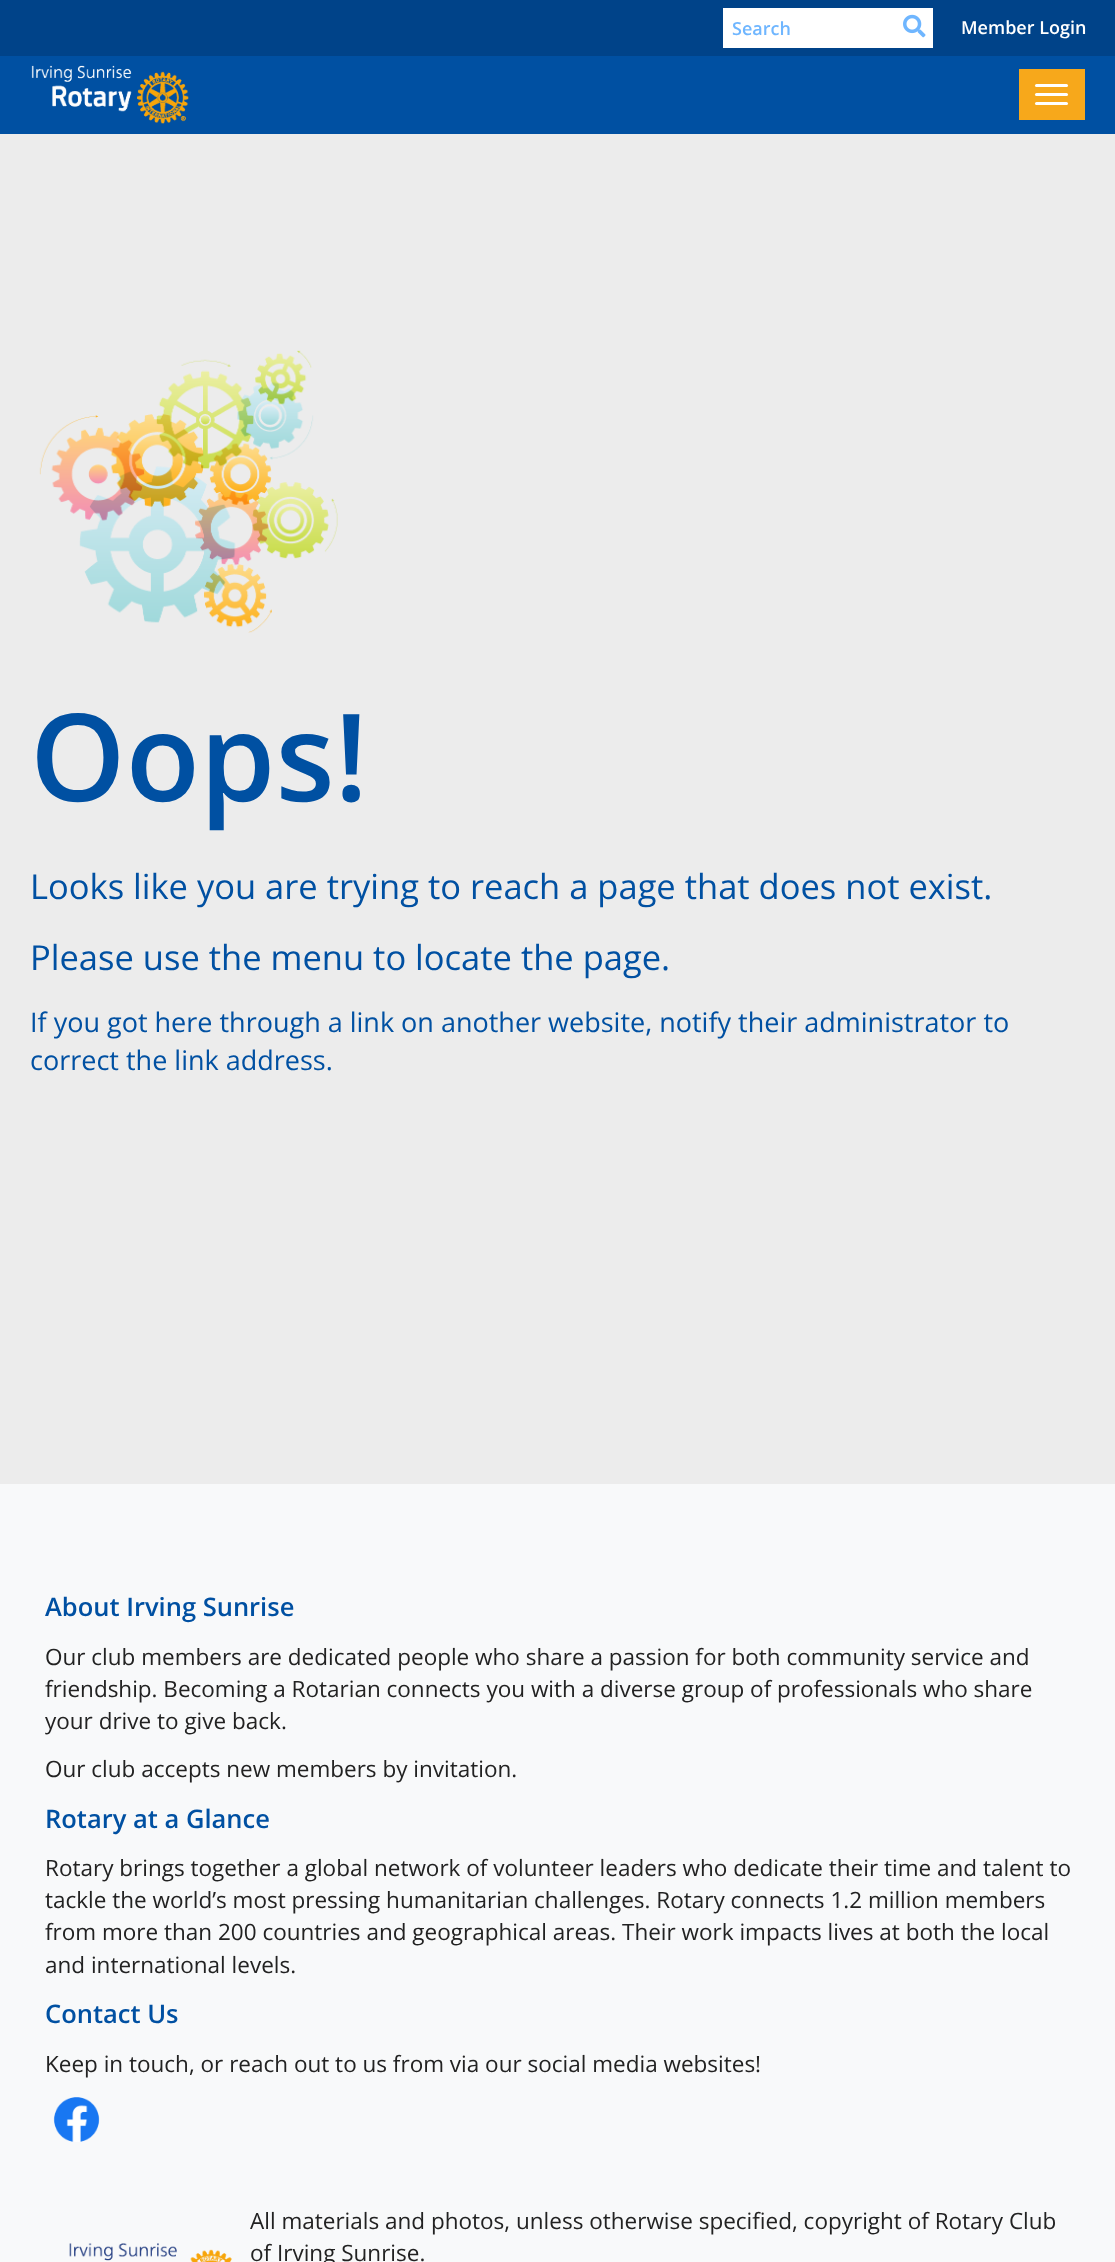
<svg xmlns="http://www.w3.org/2000/svg" width="1115" height="2262" viewBox="0 0 1115 2262">
  <rect width="100%" height="100%" fill="#ececec"/>
  <rect x="0" y="0" width="1115" height="56" fill="#004389"/>
  <rect x="723" y="8" width="210" height="40" fill="#ffffff"/>
  <text x="732" y="35" font-family="Open Sans" font-size="18" font-weight="600" fill="#6fb6ff">Search</text>
  <image x="903" y="14" width="23" height="24" href="img1.png"/>
  <text x="961" y="34" font-family="Open Sans" font-size="18" font-weight="600" fill="#ffffff">Member Login</text>
  <rect x="0" y="56" width="1115" height="78" fill="#0050a2"/>
  <image x="31" y="65" width="158" height="59" href="img2.png"/>
  <rect x="1019" y="69" width="66" height="51" fill="#f7a81b"/>
  <rect x="1035" y="84" width="33" height="3" rx="1.5" fill="#ffffff"/>
  <rect x="1035" y="93" width="33" height="3" rx="1.5" fill="#ffffff"/>
  <rect x="1035" y="102" width="33" height="3" rx="1.5" fill="#ffffff"/>
  <image x="39" y="350" width="299" height="283" href="img3.png"/>
  <text x="30" y="801" font-family="Open Sans" font-size="121.5" font-weight="600" fill="#0050a2">Oops!</text>
  <text x="30" y="899" font-family="Open Sans" font-size="34.5" fill="#0050a2">Looks like you are trying to reach a page that does not exist.</text>
  <text x="30" y="970" font-family="Open Sans" font-size="34.5" fill="#0050a2">Please use the menu to locate the page.</text>
  <text x="30" y="1032" font-family="Open Sans" font-size="27" fill="#0050a2">If you got here through a link on another website, notify their administrator to</text>
  <text x="30" y="1070" font-family="Open Sans" font-size="27" fill="#0050a2">correct the link address.</text>
  <rect x="0" y="1484" width="1115" height="778" fill="#f8f9fa"/>
  <text x="45" y="1616" font-family="Open Sans" font-size="25.5" font-weight="600" fill="#0050a2">About Irving Sunrise</text>
  <text x="45" y="1665" font-family="Open Sans" font-size="22.5" fill="#222222">Our club members are dedicated people who share a passion for both community service and</text>
  <text x="45" y="1697" font-family="Open Sans" font-size="22.5" fill="#222222">friendship. Becoming a Rotarian connects you with a diverse group of professionals who share</text>
  <text x="45" y="1729" font-family="Open Sans" font-size="22.5" fill="#222222">your drive to give back.</text>
  <text x="45" y="1777" font-family="Open Sans" font-size="22.5" fill="#222222">Our club accepts new members by invitation.</text>
  <text x="45" y="1828" font-family="Open Sans" font-size="25.5" font-weight="600" fill="#0050a2">Rotary at a Glance</text>
  <text x="45" y="1876" font-family="Open Sans" font-size="22.5" fill="#222222">Rotary brings together a global network of volunteer leaders who dedicate their time and talent to</text>
  <text x="45" y="1908" font-family="Open Sans" font-size="22.5" fill="#222222">tackle the world’s most pressing humanitarian challenges. Rotary connects 1.2 million members</text>
  <text x="45" y="1940" font-family="Open Sans" font-size="22.5" fill="#222222">from more than 200 countries and geographical areas. Their work impacts lives at both the local</text>
  <text x="45" y="1973" font-family="Open Sans" font-size="22.5" fill="#222222">and international levels.</text>
  <text x="45" y="2023" font-family="Open Sans" font-size="25.5" font-weight="600" fill="#0050a2">Contact Us</text>
  <text x="45" y="2072" font-family="Open Sans" font-size="22.5" fill="#222222">Keep in touch, or reach out to us from via our social media websites!</text>
  <image x="53" y="2097" width="47" height="45" href="img4.png"/>
  <image x="69" y="2243" width="163" height="19" href="img5.png"/>
  <text x="250" y="2229" font-family="Open Sans" font-size="22.5" fill="#222222">All materials and photos, unless otherwise specified, copyright of Rotary Club</text>
  <text x="250" y="2261" font-family="Open Sans" font-size="22.5" fill="#222222">of Irving Sunrise.</text>
</svg>
